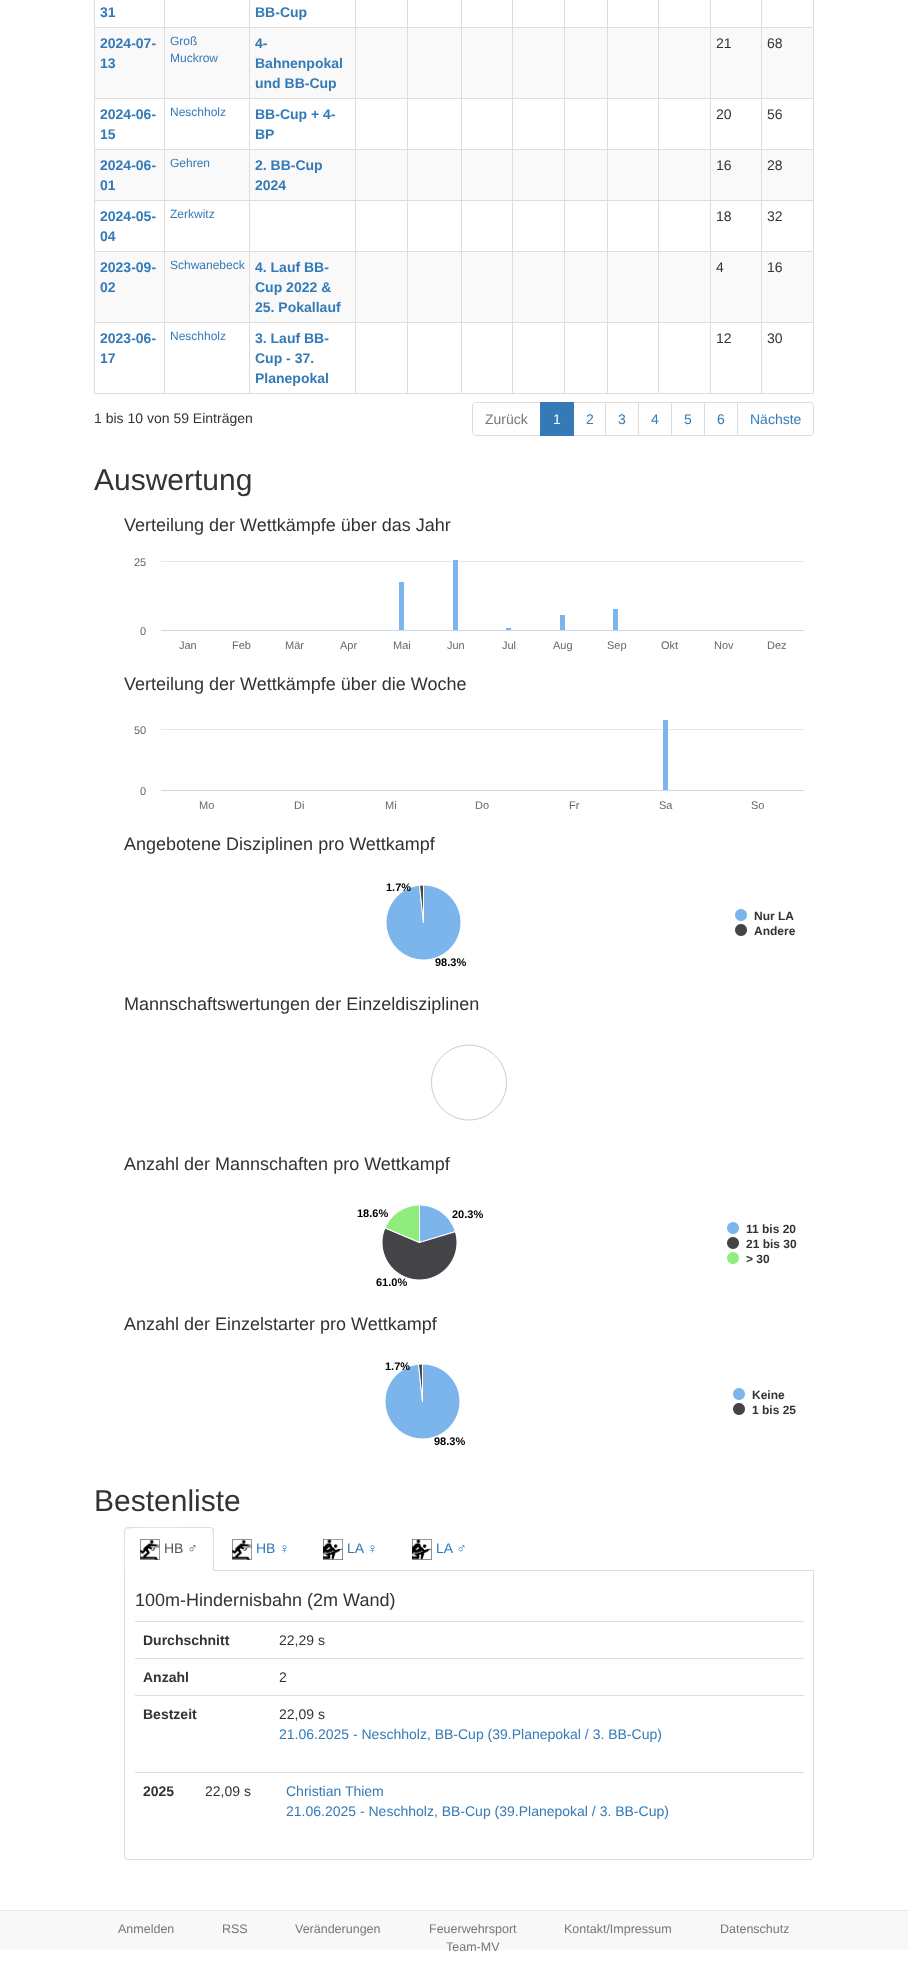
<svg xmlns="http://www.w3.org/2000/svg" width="908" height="1967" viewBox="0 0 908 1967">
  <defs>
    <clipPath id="clip1"><rect x="161" y="555" width="643" height="75"/></clipPath>
    <clipPath id="clip2"><rect x="161" y="715" width="643" height="75"/></clipPath>
  </defs>
  <rect width="100%" height="100%" fill="#ffffff"/>
  <rect x="94.5" y="-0.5" width="719" height="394" fill="none" stroke="#dddddd"/>
  <rect x="164" y="0" width="1" height="27" fill="#dddddd"/>
  <text x="100" y="17" font-family="Liberation Sans" font-size="14" font-weight="bold" fill="#337ab7">31</text>
  <rect x="249" y="0" width="1" height="27" fill="#dddddd"/>
  <rect x="355" y="0" width="1" height="27" fill="#dddddd"/>
  <text x="255" y="17" font-family="Liberation Sans" font-size="14" font-weight="bold" fill="#337ab7">BB-Cup</text>
  <rect x="407" y="0" width="1" height="27" fill="#dddddd"/>
  <rect x="461" y="0" width="1" height="27" fill="#dddddd"/>
  <rect x="512" y="0" width="1" height="27" fill="#dddddd"/>
  <rect x="564" y="0" width="1" height="27" fill="#dddddd"/>
  <rect x="607" y="0" width="1" height="27" fill="#dddddd"/>
  <rect x="658" y="0" width="1" height="27" fill="#dddddd"/>
  <rect x="710" y="0" width="1" height="27" fill="#dddddd"/>
  <rect x="761" y="0" width="1" height="27" fill="#dddddd"/>
  <rect x="95" y="28" width="718" height="70" fill="#f9f9f9"/>
  <rect x="95" y="27" width="718" height="1" fill="#dddddd"/>
  <rect x="164" y="27" width="1" height="71" fill="#dddddd"/>
  <text x="100" y="48" font-family="Liberation Sans" font-size="14" font-weight="bold" fill="#337ab7">2024-07-</text>
  <text x="100" y="68" font-family="Liberation Sans" font-size="14" font-weight="bold" fill="#337ab7">13</text>
  <rect x="249" y="27" width="1" height="71" fill="#dddddd"/>
  <text x="170" y="45" font-family="Liberation Sans" font-size="12" fill="#337ab7">Groß</text>
  <text x="170" y="62" font-family="Liberation Sans" font-size="12" fill="#337ab7">Muckrow</text>
  <rect x="355" y="27" width="1" height="71" fill="#dddddd"/>
  <text x="255" y="48" font-family="Liberation Sans" font-size="14" font-weight="bold" fill="#337ab7">4-</text>
  <text x="255" y="68" font-family="Liberation Sans" font-size="14" font-weight="bold" fill="#337ab7">Bahnenpokal</text>
  <text x="255" y="88" font-family="Liberation Sans" font-size="14" font-weight="bold" fill="#337ab7">und BB-Cup</text>
  <rect x="407" y="27" width="1" height="71" fill="#dddddd"/>
  <rect x="461" y="27" width="1" height="71" fill="#dddddd"/>
  <rect x="512" y="27" width="1" height="71" fill="#dddddd"/>
  <rect x="564" y="27" width="1" height="71" fill="#dddddd"/>
  <rect x="607" y="27" width="1" height="71" fill="#dddddd"/>
  <rect x="658" y="27" width="1" height="71" fill="#dddddd"/>
  <rect x="710" y="27" width="1" height="71" fill="#dddddd"/>
  <rect x="761" y="27" width="1" height="71" fill="#dddddd"/>
  <text x="716" y="48" font-family="Liberation Sans" font-size="14" fill="#333333">21</text>
  <text x="767" y="48" font-family="Liberation Sans" font-size="14" fill="#333333">68</text>
  <rect x="95" y="98" width="718" height="1" fill="#dddddd"/>
  <rect x="164" y="98" width="1" height="51" fill="#dddddd"/>
  <text x="100" y="119" font-family="Liberation Sans" font-size="14" font-weight="bold" fill="#337ab7">2024-06-</text>
  <text x="100" y="139" font-family="Liberation Sans" font-size="14" font-weight="bold" fill="#337ab7">15</text>
  <rect x="249" y="98" width="1" height="51" fill="#dddddd"/>
  <text x="170" y="116" font-family="Liberation Sans" font-size="12" fill="#337ab7">Neschholz</text>
  <rect x="355" y="98" width="1" height="51" fill="#dddddd"/>
  <text x="255" y="119" font-family="Liberation Sans" font-size="14" font-weight="bold" fill="#337ab7">BB-Cup + 4-</text>
  <text x="255" y="139" font-family="Liberation Sans" font-size="14" font-weight="bold" fill="#337ab7">BP</text>
  <rect x="407" y="98" width="1" height="51" fill="#dddddd"/>
  <rect x="461" y="98" width="1" height="51" fill="#dddddd"/>
  <rect x="512" y="98" width="1" height="51" fill="#dddddd"/>
  <rect x="564" y="98" width="1" height="51" fill="#dddddd"/>
  <rect x="607" y="98" width="1" height="51" fill="#dddddd"/>
  <rect x="658" y="98" width="1" height="51" fill="#dddddd"/>
  <rect x="710" y="98" width="1" height="51" fill="#dddddd"/>
  <rect x="761" y="98" width="1" height="51" fill="#dddddd"/>
  <text x="716" y="119" font-family="Liberation Sans" font-size="14" fill="#333333">20</text>
  <text x="767" y="119" font-family="Liberation Sans" font-size="14" fill="#333333">56</text>
  <rect x="95" y="150" width="718" height="50" fill="#f9f9f9"/>
  <rect x="95" y="149" width="718" height="1" fill="#dddddd"/>
  <rect x="164" y="149" width="1" height="51" fill="#dddddd"/>
  <text x="100" y="170" font-family="Liberation Sans" font-size="14" font-weight="bold" fill="#337ab7">2024-06-</text>
  <text x="100" y="190" font-family="Liberation Sans" font-size="14" font-weight="bold" fill="#337ab7">01</text>
  <rect x="249" y="149" width="1" height="51" fill="#dddddd"/>
  <text x="170" y="167" font-family="Liberation Sans" font-size="12" fill="#337ab7">Gehren</text>
  <rect x="355" y="149" width="1" height="51" fill="#dddddd"/>
  <text x="255" y="170" font-family="Liberation Sans" font-size="14" font-weight="bold" fill="#337ab7">2. BB-Cup</text>
  <text x="255" y="190" font-family="Liberation Sans" font-size="14" font-weight="bold" fill="#337ab7">2024</text>
  <rect x="407" y="149" width="1" height="51" fill="#dddddd"/>
  <rect x="461" y="149" width="1" height="51" fill="#dddddd"/>
  <rect x="512" y="149" width="1" height="51" fill="#dddddd"/>
  <rect x="564" y="149" width="1" height="51" fill="#dddddd"/>
  <rect x="607" y="149" width="1" height="51" fill="#dddddd"/>
  <rect x="658" y="149" width="1" height="51" fill="#dddddd"/>
  <rect x="710" y="149" width="1" height="51" fill="#dddddd"/>
  <rect x="761" y="149" width="1" height="51" fill="#dddddd"/>
  <text x="716" y="170" font-family="Liberation Sans" font-size="14" fill="#333333">16</text>
  <text x="767" y="170" font-family="Liberation Sans" font-size="14" fill="#333333">28</text>
  <rect x="95" y="200" width="718" height="1" fill="#dddddd"/>
  <rect x="164" y="200" width="1" height="51" fill="#dddddd"/>
  <text x="100" y="221" font-family="Liberation Sans" font-size="14" font-weight="bold" fill="#337ab7">2024-05-</text>
  <text x="100" y="241" font-family="Liberation Sans" font-size="14" font-weight="bold" fill="#337ab7">04</text>
  <rect x="249" y="200" width="1" height="51" fill="#dddddd"/>
  <text x="170" y="218" font-family="Liberation Sans" font-size="12" fill="#337ab7">Zerkwitz</text>
  <rect x="355" y="200" width="1" height="51" fill="#dddddd"/>
  <rect x="407" y="200" width="1" height="51" fill="#dddddd"/>
  <rect x="461" y="200" width="1" height="51" fill="#dddddd"/>
  <rect x="512" y="200" width="1" height="51" fill="#dddddd"/>
  <rect x="564" y="200" width="1" height="51" fill="#dddddd"/>
  <rect x="607" y="200" width="1" height="51" fill="#dddddd"/>
  <rect x="658" y="200" width="1" height="51" fill="#dddddd"/>
  <rect x="710" y="200" width="1" height="51" fill="#dddddd"/>
  <rect x="761" y="200" width="1" height="51" fill="#dddddd"/>
  <text x="716" y="221" font-family="Liberation Sans" font-size="14" fill="#333333">18</text>
  <text x="767" y="221" font-family="Liberation Sans" font-size="14" fill="#333333">32</text>
  <rect x="95" y="252" width="718" height="70" fill="#f9f9f9"/>
  <rect x="95" y="251" width="718" height="1" fill="#dddddd"/>
  <rect x="164" y="251" width="1" height="71" fill="#dddddd"/>
  <text x="100" y="272" font-family="Liberation Sans" font-size="14" font-weight="bold" fill="#337ab7">2023-09-</text>
  <text x="100" y="292" font-family="Liberation Sans" font-size="14" font-weight="bold" fill="#337ab7">02</text>
  <rect x="249" y="251" width="1" height="71" fill="#dddddd"/>
  <text x="170" y="269" font-family="Liberation Sans" font-size="12" fill="#337ab7">Schwanebeck</text>
  <rect x="355" y="251" width="1" height="71" fill="#dddddd"/>
  <text x="255" y="272" font-family="Liberation Sans" font-size="14" font-weight="bold" fill="#337ab7">4. Lauf BB-</text>
  <text x="255" y="292" font-family="Liberation Sans" font-size="14" font-weight="bold" fill="#337ab7">Cup 2022 &amp;</text>
  <text x="255" y="312" font-family="Liberation Sans" font-size="14" font-weight="bold" fill="#337ab7">25. Pokallauf</text>
  <rect x="407" y="251" width="1" height="71" fill="#dddddd"/>
  <rect x="461" y="251" width="1" height="71" fill="#dddddd"/>
  <rect x="512" y="251" width="1" height="71" fill="#dddddd"/>
  <rect x="564" y="251" width="1" height="71" fill="#dddddd"/>
  <rect x="607" y="251" width="1" height="71" fill="#dddddd"/>
  <rect x="658" y="251" width="1" height="71" fill="#dddddd"/>
  <rect x="710" y="251" width="1" height="71" fill="#dddddd"/>
  <rect x="761" y="251" width="1" height="71" fill="#dddddd"/>
  <text x="716" y="272" font-family="Liberation Sans" font-size="14" fill="#333333">4</text>
  <text x="767" y="272" font-family="Liberation Sans" font-size="14" fill="#333333">16</text>
  <rect x="95" y="322" width="718" height="1" fill="#dddddd"/>
  <rect x="164" y="322" width="1" height="71" fill="#dddddd"/>
  <text x="100" y="343" font-family="Liberation Sans" font-size="14" font-weight="bold" fill="#337ab7">2023-06-</text>
  <text x="100" y="363" font-family="Liberation Sans" font-size="14" font-weight="bold" fill="#337ab7">17</text>
  <rect x="249" y="322" width="1" height="71" fill="#dddddd"/>
  <text x="170" y="340" font-family="Liberation Sans" font-size="12" fill="#337ab7">Neschholz</text>
  <rect x="355" y="322" width="1" height="71" fill="#dddddd"/>
  <text x="255" y="343" font-family="Liberation Sans" font-size="14" font-weight="bold" fill="#337ab7">3. Lauf BB-</text>
  <text x="255" y="363" font-family="Liberation Sans" font-size="14" font-weight="bold" fill="#337ab7">Cup - 37.</text>
  <text x="255" y="383" font-family="Liberation Sans" font-size="14" font-weight="bold" fill="#337ab7">Planepokal</text>
  <rect x="407" y="322" width="1" height="71" fill="#dddddd"/>
  <rect x="461" y="322" width="1" height="71" fill="#dddddd"/>
  <rect x="512" y="322" width="1" height="71" fill="#dddddd"/>
  <rect x="564" y="322" width="1" height="71" fill="#dddddd"/>
  <rect x="607" y="322" width="1" height="71" fill="#dddddd"/>
  <rect x="658" y="322" width="1" height="71" fill="#dddddd"/>
  <rect x="710" y="322" width="1" height="71" fill="#dddddd"/>
  <rect x="761" y="322" width="1" height="71" fill="#dddddd"/>
  <text x="716" y="343" font-family="Liberation Sans" font-size="14" fill="#333333">12</text>
  <text x="767" y="343" font-family="Liberation Sans" font-size="14" fill="#333333">30</text>
  <text x="94" y="423" font-family="Liberation Sans" font-size="14" fill="#333333">1 bis 10 von 59 Einträgen</text>
  <path d="M476 402.5H540.5V435.5H476C474 435.5 472.5 434 472.5 432V406C472.5 404 474 402.5 476 402.5Z" fill="none" stroke="#dddddd"/>
  <text x="485" y="424" font-family="Liberation Sans" font-size="14" fill="#777777">Zurück</text>
  <rect x="573.5" y="402.5" width="32" height="33" fill="none" stroke="#dddddd"/>
  <rect x="540" y="402" width="34" height="34" fill="#337ab7"/>
  <text x="553" y="424" font-family="Liberation Sans" font-size="14" fill="#ffffff">1</text>
  <text x="586" y="424" font-family="Liberation Sans" font-size="14" fill="#337ab7">2</text>
  <rect x="605.5" y="402.5" width="33" height="33" fill="none" stroke="#dddddd"/>
  <text x="618" y="424" font-family="Liberation Sans" font-size="14" fill="#337ab7">3</text>
  <rect x="638.5" y="402.5" width="33" height="33" fill="none" stroke="#dddddd"/>
  <text x="651" y="424" font-family="Liberation Sans" font-size="14" fill="#337ab7">4</text>
  <rect x="671.5" y="402.5" width="33" height="33" fill="none" stroke="#dddddd"/>
  <text x="684" y="424" font-family="Liberation Sans" font-size="14" fill="#337ab7">5</text>
  <rect x="704.5" y="402.5" width="33" height="33" fill="none" stroke="#dddddd"/>
  <text x="717" y="424" font-family="Liberation Sans" font-size="14" fill="#337ab7">6</text>
  <path d="M737.5 402.5H810C812 402.5 813.5 404 813.5 406V432C813.5 434 812 435.5 810 435.5H737.5Z" fill="#ffffff" stroke="#dddddd"/>
  <text x="750" y="424" font-family="Liberation Sans" font-size="14" fill="#337ab7">Nächste</text>
  <text x="94" y="490" font-family="Liberation Sans" font-size="30" fill="#333333">Auswertung</text>
  <text x="124" y="531" font-family="Liberation Sans" font-size="18" fill="#333333">Verteilung der Wettkämpfe über das Jahr</text>
  <text x="134" y="566" font-family="Liberation Sans" font-size="11" fill="#666666">25</text>
  <rect x="161" y="561" width="643" height="1" fill="#e6e6e6"/>
  <text x="140" y="635" font-family="Liberation Sans" font-size="11" fill="#666666">0</text>
  <rect x="161" y="630" width="643" height="1" fill="#ccd6eb"/>
  <text x="179" y="649" font-family="Liberation Sans" font-size="11" fill="#666666">Jan</text>
  <text x="232" y="649" font-family="Liberation Sans" font-size="11" fill="#666666">Feb</text>
  <text x="285" y="649" font-family="Liberation Sans" font-size="11" fill="#666666">Mär</text>
  <text x="340" y="649" font-family="Liberation Sans" font-size="11" fill="#666666">Apr</text>
  <text x="393" y="649" font-family="Liberation Sans" font-size="11" fill="#666666">Mai</text>
  <rect x="399" y="581" width="5" height="49" fill="#7cb5ec"/>
  <g clip-path="url(#clip1)">
    <rect x="398.5" y="581.5" width="6" height="49" fill="none" stroke="#ffffff"/>
  </g>
  <text x="447" y="649" font-family="Liberation Sans" font-size="11" fill="#666666">Jun</text>
  <rect x="453" y="559" width="5" height="71" fill="#7cb5ec"/>
  <g clip-path="url(#clip1)">
    <rect x="452.5" y="559.5" width="6" height="71" fill="none" stroke="#ffffff"/>
  </g>
  <text x="502" y="649" font-family="Liberation Sans" font-size="11" fill="#666666">Jul</text>
  <rect x="505" y="628" width="7" height="2" fill="#7cb5ec"/>
  <g clip-path="url(#clip1)">
    <rect x="505.5" y="627.5" width="6" height="3" fill="none" stroke="#ffffff"/>
  </g>
  <text x="553" y="649" font-family="Liberation Sans" font-size="11" fill="#666666">Aug</text>
  <rect x="560" y="614" width="5" height="16" fill="#7cb5ec"/>
  <g clip-path="url(#clip1)">
    <rect x="559.5" y="614.5" width="6" height="16" fill="none" stroke="#ffffff"/>
  </g>
  <text x="607" y="649" font-family="Liberation Sans" font-size="11" fill="#666666">Sep</text>
  <rect x="613" y="608" width="5" height="22" fill="#7cb5ec"/>
  <g clip-path="url(#clip1)">
    <rect x="612.5" y="608.5" width="6" height="22" fill="none" stroke="#ffffff"/>
  </g>
  <text x="661" y="649" font-family="Liberation Sans" font-size="11" fill="#666666">Okt</text>
  <text x="714" y="649" font-family="Liberation Sans" font-size="11" fill="#666666">Nov</text>
  <text x="767" y="649" font-family="Liberation Sans" font-size="11" fill="#666666">Dez</text>
  <text x="124" y="690" font-family="Liberation Sans" font-size="18" fill="#333333">Verteilung der Wettkämpfe über die Woche</text>
  <text x="134" y="734" font-family="Liberation Sans" font-size="11" fill="#666666">50</text>
  <rect x="161" y="729" width="643" height="1" fill="#e6e6e6"/>
  <text x="140" y="795" font-family="Liberation Sans" font-size="11" fill="#666666">0</text>
  <rect x="161" y="790" width="643" height="1" fill="#ccd6eb"/>
  <text x="199" y="809" font-family="Liberation Sans" font-size="11" fill="#666666">Mo</text>
  <text x="294" y="809" font-family="Liberation Sans" font-size="11" fill="#666666">Di</text>
  <text x="385" y="809" font-family="Liberation Sans" font-size="11" fill="#666666">Mi</text>
  <text x="475" y="809" font-family="Liberation Sans" font-size="11" fill="#666666">Do</text>
  <text x="569" y="809" font-family="Liberation Sans" font-size="11" fill="#666666">Fr</text>
  <text x="659" y="809" font-family="Liberation Sans" font-size="11" fill="#666666">Sa</text>
  <rect x="663" y="719" width="5" height="71" fill="#7cb5ec"/>
  <g clip-path="url(#clip2)">
    <rect x="662.5" y="719.5" width="6" height="71" fill="none" stroke="#ffffff"/>
  </g>
  <text x="751" y="809" font-family="Liberation Sans" font-size="11" fill="#666666">So</text>
  <text x="124" y="850" font-family="Liberation Sans" font-size="18" fill="#333333">Angebotene Disziplinen pro Wettkampf</text>
  <image x="386" y="885" width="361" height="75" href="img1.png"/>
  <text x="386" y="891" font-family="Liberation Sans" font-size="11" font-weight="bold" fill="#000000">1.7%</text>
  <text x="754" y="920" font-family="Liberation Sans" font-size="12" font-weight="bold" fill="#333333">Nur LA</text>
  <text x="754" y="935" font-family="Liberation Sans" font-size="12" font-weight="bold" fill="#333333">Andere</text>
  <text x="435" y="966" font-family="Liberation Sans" font-size="11" font-weight="bold" fill="#000000">98.3%</text>
  <text x="124" y="1010" font-family="Liberation Sans" font-size="18" fill="#333333">Mannschaftswertungen der Einzeldisziplinen</text>
  <path d="M469 1045C489.5 1045 506.5 1062 506.5 1082.5C506.5 1103 489.5 1120 469 1120C448.5 1120 431.5 1103 431.5 1082.5C431.5 1062 448.5 1045 469 1045" fill="none" stroke="#cccccc"/>
  <text x="124" y="1170" font-family="Liberation Sans" font-size="18" fill="#333333">Anzahl der Mannschaften pro Wettkampf</text>
  <image x="382" y="1205" width="357" height="75" href="img2.png"/>
  <text x="357" y="1217" font-family="Liberation Sans" font-size="11" font-weight="bold" fill="#000000">18.6%</text>
  <text x="452" y="1218" font-family="Liberation Sans" font-size="11" font-weight="bold" fill="#000000">20.3%</text>
  <text x="746" y="1233" font-family="Liberation Sans" font-size="12" font-weight="bold" fill="#333333">11 bis 20</text>
  <text x="746" y="1248" font-family="Liberation Sans" font-size="12" font-weight="bold" fill="#333333">21 bis 30</text>
  <text x="746" y="1263" font-family="Liberation Sans" font-size="12" font-weight="bold" fill="#333333">&gt; 30</text>
  <text x="376" y="1286" font-family="Liberation Sans" font-size="11" font-weight="bold" fill="#000000">61.0%</text>
  <text x="124" y="1330" font-family="Liberation Sans" font-size="18" fill="#333333">Anzahl der Einzelstarter pro Wettkampf</text>
  <image x="385" y="1364" width="360" height="75" href="img3.png"/>
  <text x="385" y="1370" font-family="Liberation Sans" font-size="11" font-weight="bold" fill="#000000">1.7%</text>
  <text x="752" y="1399" font-family="Liberation Sans" font-size="12" font-weight="bold" fill="#333333">Keine</text>
  <text x="752" y="1414" font-family="Liberation Sans" font-size="12" font-weight="bold" fill="#333333">1 bis 25</text>
  <text x="434" y="1445" font-family="Liberation Sans" font-size="11" font-weight="bold" fill="#000000">98.3%</text>
  <text x="94" y="1511" font-family="Liberation Sans" font-size="30" fill="#333333">Bestenliste</text>
  <rect x="214" y="1570" width="600" height="1" fill="#dddddd"/>
  <path d="M128 1527L125 1528L126 1529C128 1527 189 1528 196 1528H210L212 1529L213 1528L210 1527Z" fill="#dddddd"/>
  <path d="M214 1571V1531C214 1530 214 1529 213 1528L212 1529C214 1531 213 1565 213 1570Z" fill="#dddddd"/>
  <path d="M124 1571L125 1570C125 1565 124 1531 126 1529L125 1528L124 1531Z" fill="#dddddd"/>
  <image x="140" y="1539" width="20" height="21" href="img4.png"/>
  <text x="164" y="1553" font-family="Liberation Sans" font-size="14" fill="#555555">HB ♂</text>
  <image x="232" y="1539" width="20" height="21" href="img5.png"/>
  <text x="256" y="1553" font-family="Liberation Sans" font-size="14" fill="#337ab7">HB ♀</text>
  <image x="323" y="1539" width="20" height="21" href="img6.png"/>
  <text x="347" y="1553" font-family="Liberation Sans" font-size="14" fill="#337ab7">LA ♀</text>
  <image x="412" y="1539" width="20" height="21" href="img6.png"/>
  <text x="436" y="1553" font-family="Liberation Sans" font-size="14" fill="#337ab7">LA ♂</text>
  <path d="M124 1571H814V1856C814 1858 812 1860 810 1860H128C126 1860 124 1858 124 1856ZM125 1571H813V1856C813 1858 812 1859 810 1859H128C126 1859 125 1858 125 1856Z" fill="#dddddd" fill-rule="evenodd"/>
  <text x="135" y="1606" font-family="Liberation Sans" font-size="18" fill="#333333">100m-Hindernisbahn (2m Wand)</text>
  <text x="143" y="1645" font-family="Liberation Sans" font-size="14" font-weight="bold" fill="#333333">Durchschnitt</text>
  <rect x="135" y="1621" width="669" height="1" fill="#dddddd"/>
  <text x="279" y="1645" font-family="Liberation Sans" font-size="14" fill="#333333">22,29 s</text>
  <text x="143" y="1682" font-family="Liberation Sans" font-size="14" font-weight="bold" fill="#333333">Anzahl</text>
  <rect x="135" y="1658" width="669" height="1" fill="#dddddd"/>
  <text x="279" y="1682" font-family="Liberation Sans" font-size="14" fill="#333333">2</text>
  <text x="143" y="1719" font-family="Liberation Sans" font-size="14" font-weight="bold" fill="#333333">Bestzeit</text>
  <rect x="135" y="1695" width="669" height="1" fill="#dddddd"/>
  <text x="279" y="1719" font-family="Liberation Sans" font-size="14" fill="#333333">22,09 s</text>
  <text x="279" y="1739" font-family="Liberation Sans" font-size="14" fill="#337ab7">21.06.2025 - Neschholz, BB-Cup (39.Planepokal / 3. BB-Cup)</text>
  <text x="143" y="1796" font-family="Liberation Sans" font-size="14" font-weight="bold" fill="#333333">2025</text>
  <text x="205" y="1796" font-family="Liberation Sans" font-size="14" fill="#333333">22,09 s</text>
  <rect x="135" y="1772" width="669" height="1" fill="#dddddd"/>
  <text x="286" y="1796" font-family="Liberation Sans" font-size="14" fill="#337ab7">Christian Thiem</text>
  <text x="286" y="1816" font-family="Liberation Sans" font-size="14" fill="#337ab7">21.06.2025 - Neschholz, BB-Cup (39.Planepokal / 3. BB-Cup)</text>
  <rect x="0" y="1911" width="908" height="39" fill="#f8f8f8"/>
  <rect x="0" y="1910" width="908" height="1" fill="#e7e7e7"/>
  <text x="118" y="1933" font-family="Liberation Sans" font-size="12.5" fill="#777777">Anmelden</text>
  <text x="222" y="1933" font-family="Liberation Sans" font-size="12.5" fill="#777777">RSS</text>
  <text x="295" y="1933" font-family="Liberation Sans" font-size="12.5" fill="#777777">Veränderungen</text>
  <text x="429" y="1933" font-family="Liberation Sans" font-size="12.5" fill="#777777">Feuerwehrsport</text>
  <text x="446" y="1951" font-family="Liberation Sans" font-size="12.5" fill="#777777">Team-MV</text>
  <text x="564" y="1933" font-family="Liberation Sans" font-size="12.5" fill="#777777">Kontakt/Impressum</text>
  <text x="720" y="1933" font-family="Liberation Sans" font-size="12.5" fill="#777777">Datenschutz</text>
</svg>
